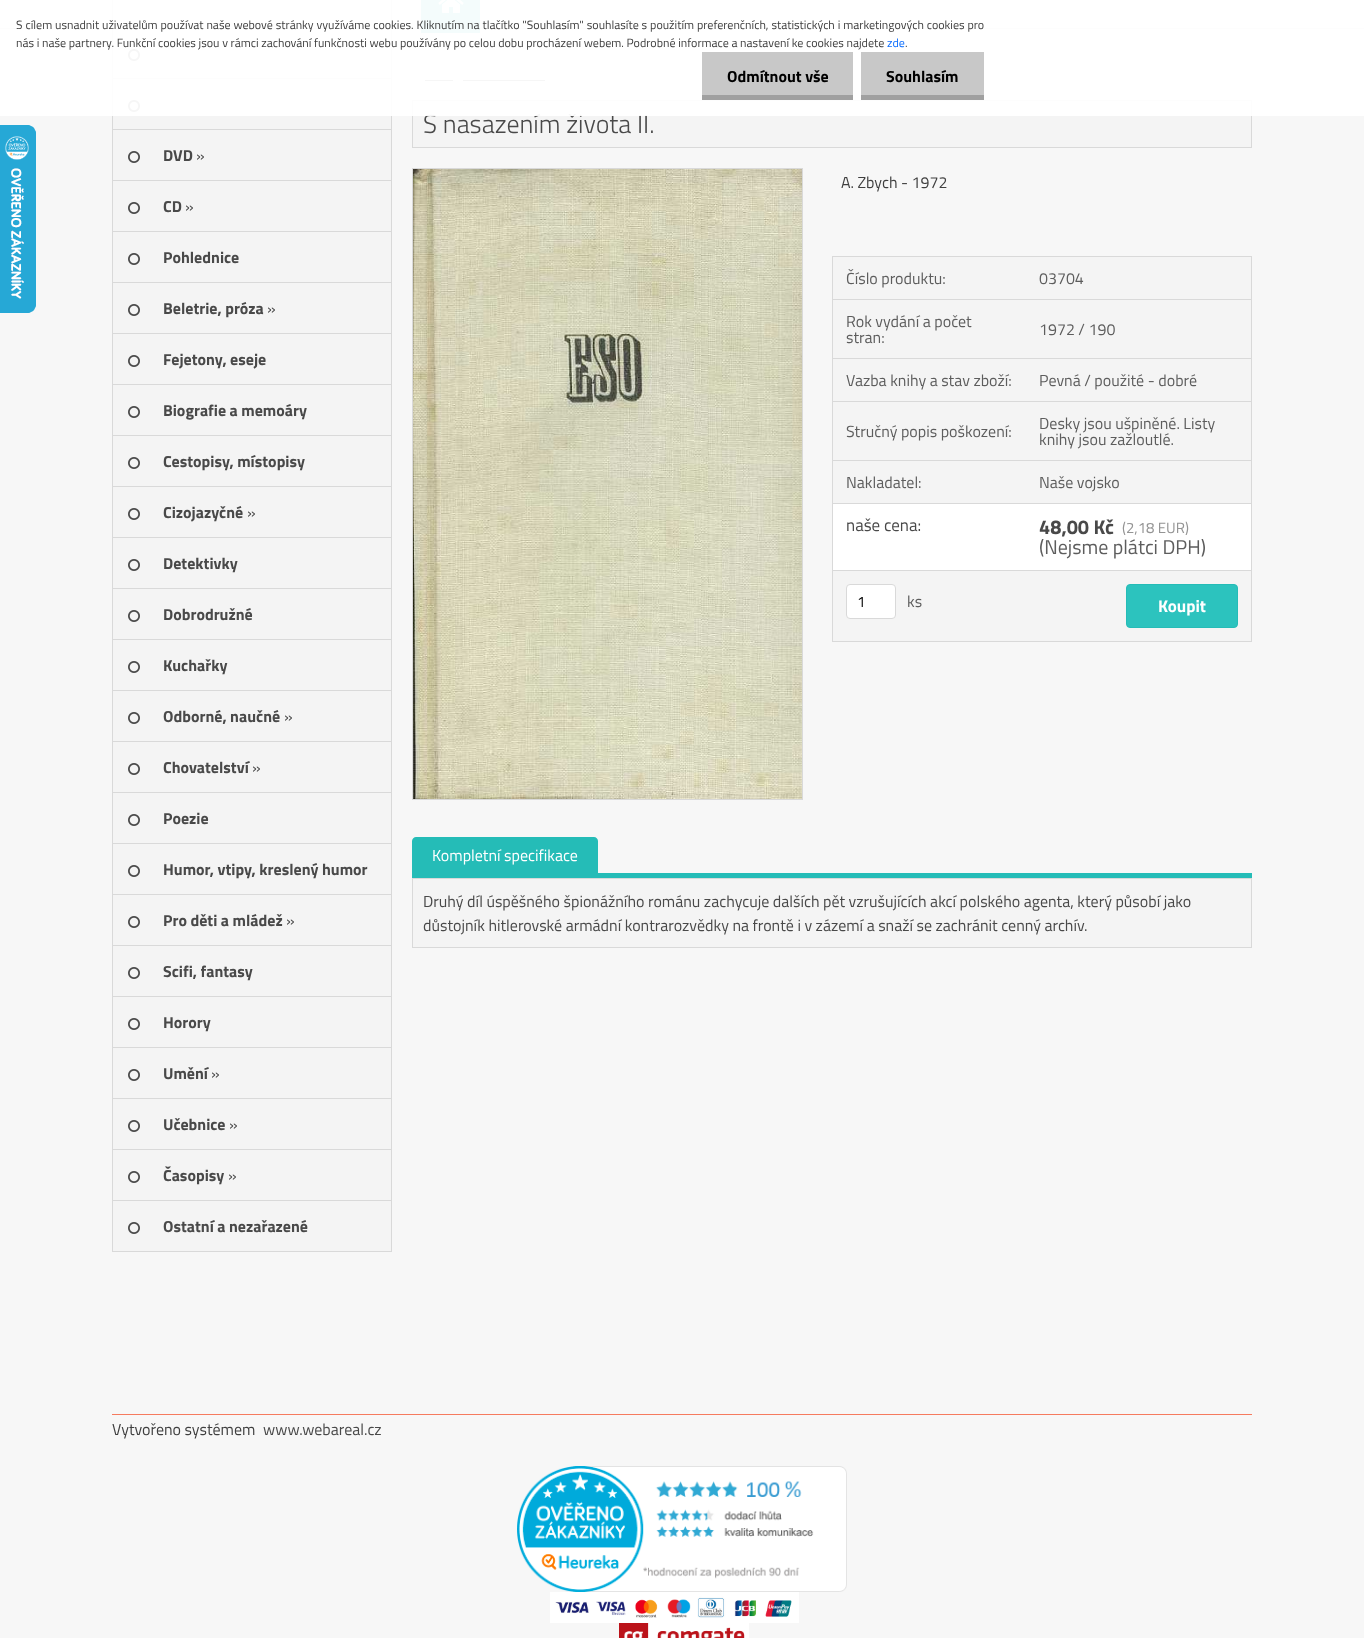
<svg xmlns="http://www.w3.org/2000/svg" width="1364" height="1638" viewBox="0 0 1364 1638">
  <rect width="100%" height="100%" fill="#f7f7f7"/>
  <rect x="-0.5" y="-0.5" width="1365" height="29" fill="none" stroke="#d9d9d9"/>
  <rect x="0" y="0" width="1364" height="28" fill="#ffffff"/>
  <rect x="422" y="0" width="57" height="32" fill="#2cc3be"/>
  <rect x="479" y="0" width="1" height="33" fill="#25bcb7"/>
  <rect x="421" y="32" width="59" height="1" fill="#25bcb7"/>
  <rect x="421" y="0" width="1" height="33" fill="#25bcb7"/>
  <image x="438" y="0" width="26" height="13" href="img2.png"/>
  <rect x="113" y="29" width="278" height="49" fill="#f4f4f4"/>
  <rect x="391" y="0" width="1" height="1252" fill="#d9d9d9"/>
  <rect x="112" y="78" width="280" height="1" fill="#d9d9d9"/>
  <rect x="112" y="0" width="1" height="79" fill="#d9d9d9"/>
  <image x="128" y="49" width="12" height="12" href="img3.png"/>
  <rect x="113" y="79" width="278" height="50" fill="#f4f4f4"/>
  <rect x="112" y="129" width="280" height="1" fill="#d9d9d9"/>
  <rect x="112" y="79" width="1" height="51" fill="#d9d9d9"/>
  <image x="128" y="100" width="12" height="12" href="img3.png"/>
  <rect x="425" y="80" width="28" height="1" fill="#4a4a4a"/>
  <rect x="463" y="80" width="82" height="1" fill="#4a4a4a"/>
  <rect x="412.5" y="100.5" width="839" height="47" fill="#f4f4f4" stroke="#d9d9d9"/>
  <text x="423" y="133" font-family="Titillium Web" font-size="26" font-weight="300" fill="#494949">S nasazením života II.</text>
  <rect x="0" y="0" width="1364" height="116" fill="#ffffff" fill-opacity="0.95"/>
  <text x="16" y="29" word-spacing="0.25" font-family="Titillium Web" font-size="12" fill="#3f3f3f">S cílem usnadnit uživatelům používat naše webové stránky využíváme cookies. Kliknutím na tlačítko "Souhlasím" souhlasíte s použitím preferenčních, statistických i marketingových cookies pro</text>
  <text x="16" y="47" font-family="Titillium Web" font-size="12" fill="#3f3f3f">nás i naše partnery. Funkční cookies jsou v rámci zachování funkčnosti webu používány po celou dobu procházení webem. Podrobné informace a nastavení ke cookies najdete</text>
  <text x="887" y="47" font-family="Titillium Web" font-size="12" fill="#0d6efd">zde</text>
  <text x="905" y="47" font-family="Titillium Web" font-size="12" fill="#3f3f3f">.</text>
  <rect x="702" y="52" width="151" height="43" fill="#c8c8c8"/>
  <rect x="702" y="95" width="151" height="5" fill="#a0a0a0"/>
  <text x="727" y="82" font-family="Titillium Web" font-size="16" font-weight="bold" fill="#000000">Odmítnout vše</text>
  <rect x="861" y="52" width="123" height="43" fill="#c8c8c8"/>
  <rect x="861" y="95" width="123" height="5" fill="#a0a0a0"/>
  <text x="886" y="82" font-family="Titillium Web" font-size="16" font-weight="bold" fill="#000000">Souhlasím</text>
  <image x="0" y="125" width="36" height="188" href="img1.png"/>
  <rect x="113" y="130" width="278" height="50" fill="#f4f4f4"/>
  <rect x="112" y="180" width="280" height="1" fill="#d9d9d9"/>
  <rect x="112" y="130" width="1" height="51" fill="#d9d9d9"/>
  <image x="128" y="151" width="12" height="12" href="img3.png"/>
  <text x="163" y="161" font-family="Titillium Web" font-size="16" font-weight="bold" fill="#494949">DVD</text>
  <text x="196" y="161" font-family="Titillium Web" font-size="16" fill="#494949">»</text>
  <rect x="113" y="181" width="278" height="50" fill="#f4f4f4"/>
  <rect x="112" y="231" width="280" height="1" fill="#d9d9d9"/>
  <rect x="112" y="181" width="1" height="51" fill="#d9d9d9"/>
  <image x="128" y="202" width="12" height="12" href="img3.png"/>
  <text x="163" y="212" font-family="Titillium Web" font-size="16" font-weight="bold" fill="#494949">CD</text>
  <text x="185" y="212" font-family="Titillium Web" font-size="16" fill="#494949">»</text>
  <rect x="113" y="232" width="278" height="50" fill="#f4f4f4"/>
  <rect x="112" y="282" width="280" height="1" fill="#d9d9d9"/>
  <rect x="112" y="232" width="1" height="51" fill="#d9d9d9"/>
  <image x="128" y="253" width="12" height="12" href="img3.png"/>
  <text x="163" y="263" font-family="Titillium Web" font-size="16" font-weight="bold" fill="#494949">Pohlednice</text>
  <rect x="113" y="283" width="278" height="50" fill="#f4f4f4"/>
  <rect x="112" y="333" width="280" height="1" fill="#d9d9d9"/>
  <rect x="112" y="283" width="1" height="51" fill="#d9d9d9"/>
  <image x="128" y="304" width="12" height="12" href="img3.png"/>
  <text x="163" y="314" font-family="Titillium Web" font-size="16" font-weight="bold" fill="#494949">Beletrie, próza</text>
  <text x="267" y="314" font-family="Titillium Web" font-size="16" fill="#494949">»</text>
  <rect x="113" y="334" width="278" height="50" fill="#f4f4f4"/>
  <rect x="112" y="384" width="280" height="1" fill="#d9d9d9"/>
  <rect x="112" y="334" width="1" height="51" fill="#d9d9d9"/>
  <image x="128" y="355" width="12" height="12" href="img3.png"/>
  <text x="163" y="365" font-family="Titillium Web" font-size="16" font-weight="bold" fill="#494949">Fejetony, eseje</text>
  <rect x="113" y="385" width="278" height="50" fill="#f4f4f4"/>
  <rect x="112" y="435" width="280" height="1" fill="#d9d9d9"/>
  <rect x="112" y="385" width="1" height="51" fill="#d9d9d9"/>
  <image x="128" y="406" width="12" height="12" href="img3.png"/>
  <text x="163" y="416" font-family="Titillium Web" font-size="16" font-weight="bold" fill="#494949">Biografie a memoáry</text>
  <rect x="113" y="436" width="278" height="50" fill="#f4f4f4"/>
  <rect x="112" y="486" width="280" height="1" fill="#d9d9d9"/>
  <rect x="112" y="436" width="1" height="51" fill="#d9d9d9"/>
  <image x="128" y="457" width="12" height="12" href="img3.png"/>
  <text x="163" y="467" font-family="Titillium Web" font-size="16" font-weight="bold" fill="#494949">Cestopisy, místopisy</text>
  <rect x="113" y="487" width="278" height="50" fill="#f4f4f4"/>
  <rect x="112" y="537" width="280" height="1" fill="#d9d9d9"/>
  <rect x="112" y="487" width="1" height="51" fill="#d9d9d9"/>
  <image x="128" y="508" width="12" height="12" href="img3.png"/>
  <text x="163" y="518" font-family="Titillium Web" font-size="16" font-weight="bold" fill="#494949">Cizojazyčné</text>
  <text x="247" y="518" font-family="Titillium Web" font-size="16" fill="#494949">»</text>
  <rect x="113" y="538" width="278" height="50" fill="#f4f4f4"/>
  <rect x="112" y="588" width="280" height="1" fill="#d9d9d9"/>
  <rect x="112" y="538" width="1" height="51" fill="#d9d9d9"/>
  <image x="128" y="559" width="12" height="12" href="img3.png"/>
  <text x="163" y="569" font-family="Titillium Web" font-size="16" font-weight="bold" fill="#494949">Detektivky</text>
  <rect x="113" y="589" width="278" height="50" fill="#f4f4f4"/>
  <rect x="112" y="639" width="280" height="1" fill="#d9d9d9"/>
  <rect x="112" y="589" width="1" height="51" fill="#d9d9d9"/>
  <image x="128" y="610" width="12" height="12" href="img3.png"/>
  <text x="163" y="620" font-family="Titillium Web" font-size="16" font-weight="bold" fill="#494949">Dobrodružné</text>
  <rect x="113" y="640" width="278" height="50" fill="#f4f4f4"/>
  <rect x="112" y="690" width="280" height="1" fill="#d9d9d9"/>
  <rect x="112" y="640" width="1" height="51" fill="#d9d9d9"/>
  <image x="128" y="661" width="12" height="12" href="img3.png"/>
  <text x="163" y="671" font-family="Titillium Web" font-size="16" font-weight="bold" fill="#494949">Kuchařky</text>
  <rect x="113" y="691" width="278" height="50" fill="#f4f4f4"/>
  <rect x="112" y="741" width="280" height="1" fill="#d9d9d9"/>
  <rect x="112" y="691" width="1" height="51" fill="#d9d9d9"/>
  <image x="128" y="712" width="12" height="12" href="img3.png"/>
  <text x="163" y="722" font-family="Titillium Web" font-size="16" font-weight="bold" fill="#494949">Odborné, naučné</text>
  <text x="284" y="722" font-family="Titillium Web" font-size="16" fill="#494949">»</text>
  <rect x="113" y="742" width="278" height="50" fill="#f4f4f4"/>
  <rect x="112" y="792" width="280" height="1" fill="#d9d9d9"/>
  <rect x="112" y="742" width="1" height="51" fill="#d9d9d9"/>
  <image x="128" y="763" width="12" height="12" href="img3.png"/>
  <text x="163" y="773" font-family="Titillium Web" font-size="16" font-weight="bold" fill="#494949">Chovatelství</text>
  <text x="252" y="773" font-family="Titillium Web" font-size="16" fill="#494949">»</text>
  <rect x="113" y="793" width="278" height="50" fill="#f4f4f4"/>
  <rect x="112" y="843" width="280" height="1" fill="#d9d9d9"/>
  <rect x="112" y="793" width="1" height="51" fill="#d9d9d9"/>
  <image x="128" y="814" width="12" height="12" href="img3.png"/>
  <text x="163" y="824" font-family="Titillium Web" font-size="16" font-weight="bold" fill="#494949">Poezie</text>
  <rect x="113" y="844" width="278" height="50" fill="#f4f4f4"/>
  <rect x="112" y="894" width="280" height="1" fill="#d9d9d9"/>
  <rect x="112" y="844" width="1" height="51" fill="#d9d9d9"/>
  <image x="128" y="865" width="12" height="12" href="img3.png"/>
  <text x="163" y="875" font-family="Titillium Web" font-size="16" font-weight="bold" fill="#494949">Humor, vtipy, kreslený humor</text>
  <rect x="113" y="895" width="278" height="50" fill="#f4f4f4"/>
  <rect x="112" y="945" width="280" height="1" fill="#d9d9d9"/>
  <rect x="112" y="895" width="1" height="51" fill="#d9d9d9"/>
  <image x="128" y="916" width="12" height="12" href="img3.png"/>
  <text x="163" y="926" font-family="Titillium Web" font-size="16" font-weight="bold" fill="#494949">Pro děti a mládež</text>
  <text x="286" y="926" font-family="Titillium Web" font-size="16" fill="#494949">»</text>
  <rect x="113" y="946" width="278" height="50" fill="#f4f4f4"/>
  <rect x="112" y="996" width="280" height="1" fill="#d9d9d9"/>
  <rect x="112" y="946" width="1" height="51" fill="#d9d9d9"/>
  <image x="128" y="967" width="12" height="12" href="img3.png"/>
  <text x="163" y="977" font-family="Titillium Web" font-size="16" font-weight="bold" fill="#494949">Scifi, fantasy</text>
  <rect x="113" y="997" width="278" height="50" fill="#f4f4f4"/>
  <rect x="112" y="1047" width="280" height="1" fill="#d9d9d9"/>
  <rect x="112" y="997" width="1" height="51" fill="#d9d9d9"/>
  <image x="128" y="1018" width="12" height="12" href="img3.png"/>
  <text x="163" y="1028" font-family="Titillium Web" font-size="16" font-weight="bold" fill="#494949">Horory</text>
  <rect x="113" y="1048" width="278" height="50" fill="#f4f4f4"/>
  <rect x="112" y="1098" width="280" height="1" fill="#d9d9d9"/>
  <rect x="112" y="1048" width="1" height="51" fill="#d9d9d9"/>
  <image x="128" y="1069" width="12" height="12" href="img3.png"/>
  <text x="163" y="1079" font-family="Titillium Web" font-size="16" font-weight="bold" fill="#494949">Umění</text>
  <text x="211" y="1079" font-family="Titillium Web" font-size="16" fill="#494949">»</text>
  <rect x="113" y="1099" width="278" height="50" fill="#f4f4f4"/>
  <rect x="112" y="1149" width="280" height="1" fill="#d9d9d9"/>
  <rect x="112" y="1099" width="1" height="51" fill="#d9d9d9"/>
  <image x="128" y="1120" width="12" height="12" href="img3.png"/>
  <text x="163" y="1130" font-family="Titillium Web" font-size="16" font-weight="bold" fill="#494949">Učebnice</text>
  <text x="229" y="1130" font-family="Titillium Web" font-size="16" fill="#494949">»</text>
  <rect x="113" y="1150" width="278" height="50" fill="#f4f4f4"/>
  <rect x="112" y="1200" width="280" height="1" fill="#d9d9d9"/>
  <rect x="112" y="1150" width="1" height="51" fill="#d9d9d9"/>
  <image x="128" y="1171" width="12" height="12" href="img3.png"/>
  <text x="163" y="1181" font-family="Titillium Web" font-size="16" font-weight="bold" fill="#494949">Časopisy</text>
  <text x="228" y="1181" font-family="Titillium Web" font-size="16" fill="#494949">»</text>
  <rect x="113" y="1201" width="278" height="50" fill="#f4f4f4"/>
  <rect x="112" y="1251" width="280" height="1" fill="#d9d9d9"/>
  <rect x="112" y="1201" width="1" height="51" fill="#d9d9d9"/>
  <image x="128" y="1222" width="12" height="12" href="img3.png"/>
  <text x="163" y="1232" font-family="Titillium Web" font-size="16" font-weight="bold" fill="#494949">Ostatní a nezařazené</text>
  <rect x="412.5" y="168.5" width="390" height="631" fill="none" stroke="#d9d9d9"/>
  <image x="413" y="169" width="389" height="630" href="img4.png"/>
  <text x="841" y="188" font-family="Titillium Web" font-size="16" fill="#3f3f3f">A. Zbych - 1972</text>
  <rect x="833" y="504" width="418" height="66" fill="#ffffff"/>
  <rect x="832" y="256" width="420" height="1" fill="#d9d9d9"/>
  <rect x="1251" y="256" width="1" height="386" fill="#d9d9d9"/>
  <rect x="832" y="641" width="420" height="1" fill="#d9d9d9"/>
  <rect x="832" y="256" width="1" height="386" fill="#d9d9d9"/>
  <rect x="833" y="257" width="418" height="42" fill="#f4f4f4"/>
  <text x="846" y="284" font-family="Titillium Web" font-size="16" fill="#5d5d5d">Číslo produktu:</text>
  <text x="1039" y="284" font-family="Titillium Web" font-size="16" fill="#5d5d5d">03704</text>
  <rect x="833" y="300" width="418" height="58" fill="#f4f4f4"/>
  <rect x="832" y="299" width="420" height="1" fill="#d9d9d9"/>
  <text x="846" y="327" font-family="Titillium Web" font-size="16" fill="#5d5d5d">Rok vydání a počet</text>
  <text x="846" y="343" font-family="Titillium Web" font-size="16" fill="#5d5d5d">stran:</text>
  <text x="1039" y="335" font-family="Titillium Web" font-size="16" fill="#5d5d5d">1972 / 190</text>
  <rect x="833" y="359" width="418" height="42" fill="#f4f4f4"/>
  <rect x="832" y="358" width="420" height="1" fill="#d9d9d9"/>
  <text x="846" y="386" font-family="Titillium Web" font-size="16" fill="#5d5d5d">Vazba knihy a stav zboží:</text>
  <text x="1039" y="386" font-family="Titillium Web" font-size="16" fill="#5d5d5d">Pevná / použité - dobré</text>
  <rect x="833" y="402" width="418" height="58" fill="#f4f4f4"/>
  <rect x="832" y="401" width="420" height="1" fill="#d9d9d9"/>
  <text x="846" y="437" font-family="Titillium Web" font-size="16" fill="#5d5d5d">Stručný popis poškození:</text>
  <text x="1039" y="429" font-family="Titillium Web" font-size="16" fill="#5d5d5d">Desky jsou ušpiněné. Listy</text>
  <text x="1039" y="445" font-family="Titillium Web" font-size="16" fill="#5d5d5d">knihy jsou zažloutlé.</text>
  <rect x="833" y="461" width="418" height="42" fill="#f4f4f4"/>
  <rect x="832" y="460" width="420" height="1" fill="#d9d9d9"/>
  <text x="846" y="488" font-family="Titillium Web" font-size="16" fill="#5d5d5d">Nakladatel:</text>
  <text x="1039" y="488" font-family="Titillium Web" font-size="16" fill="#5d5d5d">Naše vojsko</text>
  <rect x="832" y="503" width="420" height="1" fill="#d9d9d9"/>
  <text x="846" y="531" font-family="Titillium Web" font-size="17" fill="#494949">naše cena:</text>
  <text x="1039" y="534" font-family="Titillium Web" font-size="20" font-weight="bold" fill="#494949">48,00 Kč</text>
  <text x="1122" y="533" font-family="Titillium Web" font-size="15" fill="#949494">(2,18 EUR)</text>
  <text x="1039" y="554" font-family="Titillium Web" font-size="20" fill="#5d5d5d">(Nejsme plátci DPH)</text>
  <rect x="833" y="571" width="418" height="70" fill="#f4f4f4"/>
  <rect x="832" y="570" width="420" height="1" fill="#d9d9d9"/>
  <rect x="846.5" y="584.5" width="49" height="34" rx="3.5" fill="#ffffff" stroke="#d9d9d9"/>
  <text x="857" y="607" font-family="Titillium Web" font-size="15" fill="#000000">1</text>
  <text x="907" y="607" font-family="Titillium Web" font-size="16" fill="#5d5d5d">ks</text>
  <rect x="1126.5" y="584.5" width="111" height="43" rx="3.5" fill="#2cc3be" stroke="#25bcb7"/>
  <text x="1158" y="612" font-family="Titillium Web" font-size="17" font-weight="bold" fill="#ffffff">Koupit</text>
  <rect x="412" y="873" width="840" height="5" fill="#25bcb7"/>
  <path d="M416 837H594C596 837 598 839 598 841V873H412V841C412 839 414 837 416 837Z" fill="#25bcb7"/>
  <text x="432" y="861" font-family="Titillium Web" font-size="16" fill="#ffffff">Kompletní specifikace</text>
  <rect x="412.5" y="878.5" width="839" height="69" fill="#f4f4f4" stroke="#d9d9d9"/>
  <text x="423" y="907" font-family="Titillium Web" font-size="16" fill="#494949">Druhý díl úspěšného špionážního románu zachycuje dalších pět vzrušujících akcí polského agenta, který působí jako</text>
  <text x="423" y="931" font-family="Titillium Web" font-size="16" fill="#494949">důstojník hitlerovské armádní kontrarozvědky na frontě i v zázemí a snaží se zachránit cenný archív.</text>
  <rect x="112" y="1414" width="1140" height="1" fill="#f67b5f"/>
  <text x="112" y="1435" font-family="Titillium Web" font-size="16" fill="#3f3f3f">Vytvořeno systémem</text>
  <text x="263" y="1435" font-family="Titillium Web" font-size="16" fill="#494949">www.webareal.cz</text>
  <image x="517" y="1466" width="330" height="126" href="img5.png"/>
  <image x="550" y="1592" width="249" height="31" href="img6.png"/>
  <image x="619" y="1623" width="130" height="15" href="img7.png"/>
</svg>
